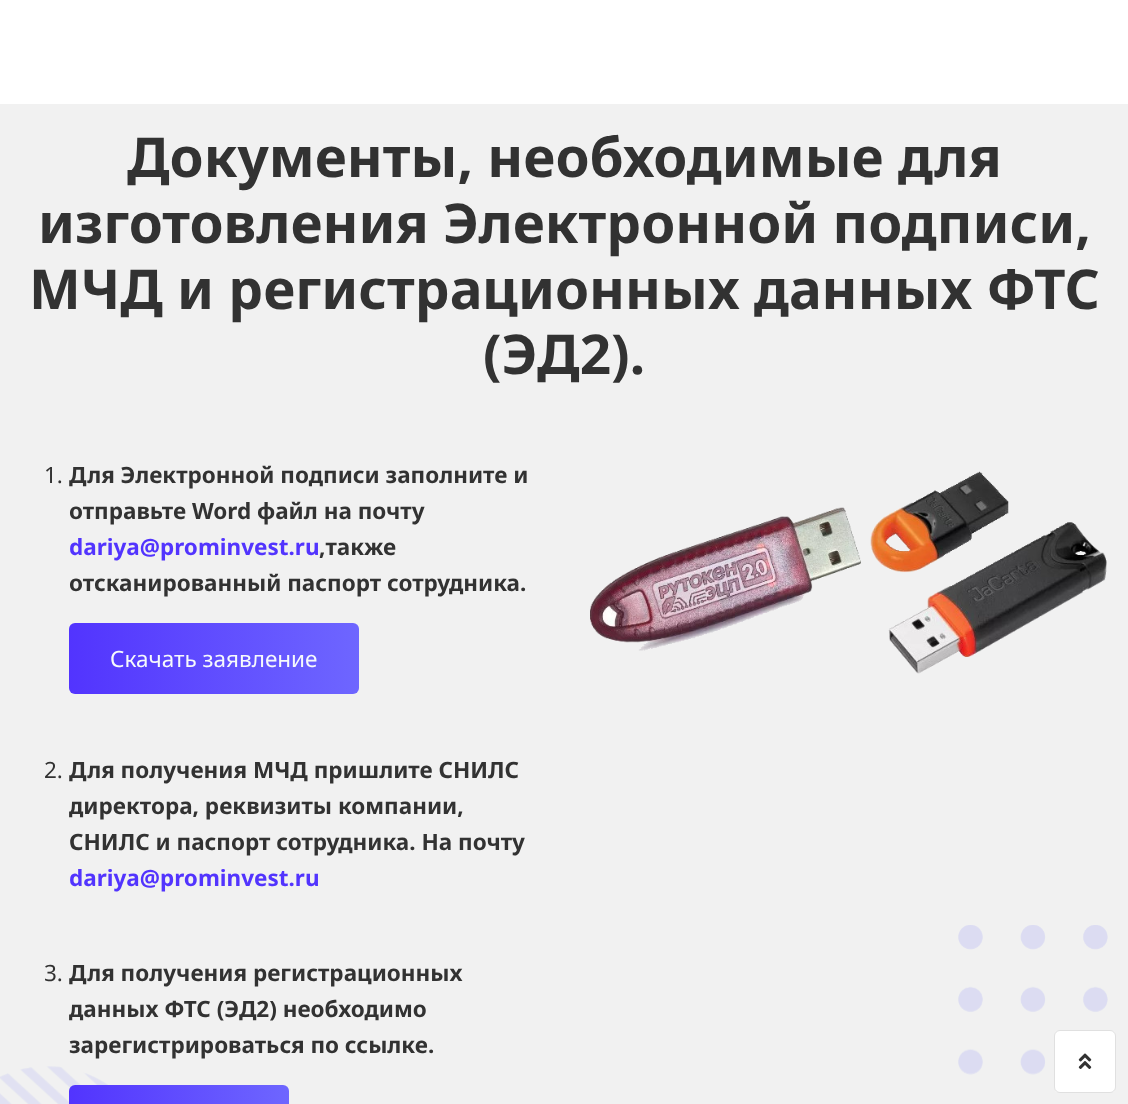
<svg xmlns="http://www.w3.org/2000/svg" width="1128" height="1104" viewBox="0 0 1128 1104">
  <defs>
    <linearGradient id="g1" gradientUnits="userSpaceOnUse" x1="69" y1="658" x2="359" y2="658"><stop offset="0" stop-color="#5234fe"/><stop offset="1" stop-color="#6e66ff"/></linearGradient>
    <linearGradient id="g2" gradientUnits="userSpaceOnUse" x1="69" y1="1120" x2="289" y2="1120"><stop offset="0" stop-color="#5234fe"/><stop offset="1" stop-color="#6e66ff"/></linearGradient>
  </defs>
  <rect width="100%" height="100%" fill="#ffffff"/>
  <rect x="0" y="104" width="1128" height="1000" fill="#f1f1f1"/>
  <text x="127" y="177" font-family="Noto Sans" font-size="54.9" font-weight="bold" fill="#323232">Документы, необходимые для</text>
  <text x="38" y="243" font-family="Noto Sans" font-size="54.9" font-weight="bold" fill="#323232">изготовления Электронной подписи,</text>
  <text x="29" y="309" font-family="Noto Sans" font-size="54.9" font-weight="bold" fill="#323232">МЧД и регистрационных данных ФТС</text>
  <text x="483" y="374" font-family="Noto Sans" font-size="54.9" font-weight="bold" fill="#323232">(ЭД2).</text>
  <text x="44" y="483" font-family="Noto Sans" font-size="22.5" fill="#323232">1.</text>
  <text x="69" y="483" font-family="Noto Sans" font-size="22.5" font-weight="bold" fill="#323232">Для Электронной подписи заполните и</text>
  <text x="69" y="519" font-family="Noto Sans" font-size="22.5" font-weight="bold" fill="#323232">отправьте Word файл на почту</text>
  <text x="69" y="555" font-family="Noto Sans" font-size="22.5" font-weight="bold" fill="#5234fe">dariya@prominvest.ru</text>
  <text x="319" y="555" font-family="Noto Sans" font-size="22.5" font-weight="bold" fill="#323232">,также</text>
  <text x="69" y="591" font-family="Noto Sans" font-size="22.5" font-weight="bold" fill="#323232">отсканированный паспорт сотрудника.</text>
  <rect x="69" y="623" width="290" height="71" rx="6" fill="url(#g1)"/>
  <text x="110" y="667" font-family="Noto Sans" font-size="22.5" fill="#f6f9fc">Скачать заявление</text>
  <text x="44" y="778" font-family="Noto Sans" font-size="22.5" fill="#323232">2.</text>
  <text x="69" y="778" font-family="Noto Sans" font-size="22.5" font-weight="bold" fill="#323232">Для получения МЧД пришлите СНИЛС</text>
  <text x="69" y="814" font-family="Noto Sans" font-size="22.5" font-weight="bold" fill="#323232">директора, реквизиты компании,</text>
  <text x="69" y="850" font-family="Noto Sans" font-size="22.5" font-weight="bold" fill="#323232">СНИЛС и паспорт сотрудника. На почту</text>
  <text x="69" y="886" font-family="Noto Sans" font-size="22.5" font-weight="bold" fill="#5234fe">dariya@prominvest.ru</text>
  <text x="44" y="981" font-family="Noto Sans" font-size="22.5" fill="#323232">3.</text>
  <text x="69" y="981" font-family="Noto Sans" font-size="22.5" font-weight="bold" fill="#323232">Для получения регистрационных</text>
  <text x="69" y="1017" font-family="Noto Sans" font-size="22.5" font-weight="bold" fill="#323232">данных ФТС (ЭД2) необходимо</text>
  <text x="69" y="1053" font-family="Noto Sans" font-size="22.5" font-weight="bold" fill="#323232">зарегистрироваться по ссылке.</text>
  <image x="0" y="1066" width="108" height="38" href="img3.png"/>
  <rect x="69" y="1085" width="220" height="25" rx="6" fill="url(#g2)"/>
  <image x="590" y="471" width="517" height="203" href="img1.png"/>
  <image x="958" y="925" width="150" height="150" href="img2.png"/>
  <rect x="1054" y="1030" width="62" height="63" rx="6" fill="#ffffff"/>
  <rect x="1054.5" y="1030.5" width="61" height="62" rx="5.5" fill="none" stroke="#323232" stroke-opacity="0.15"/>
  <image x="1078" y="1053" width="14" height="16" href="img4.png"/>
</svg>
